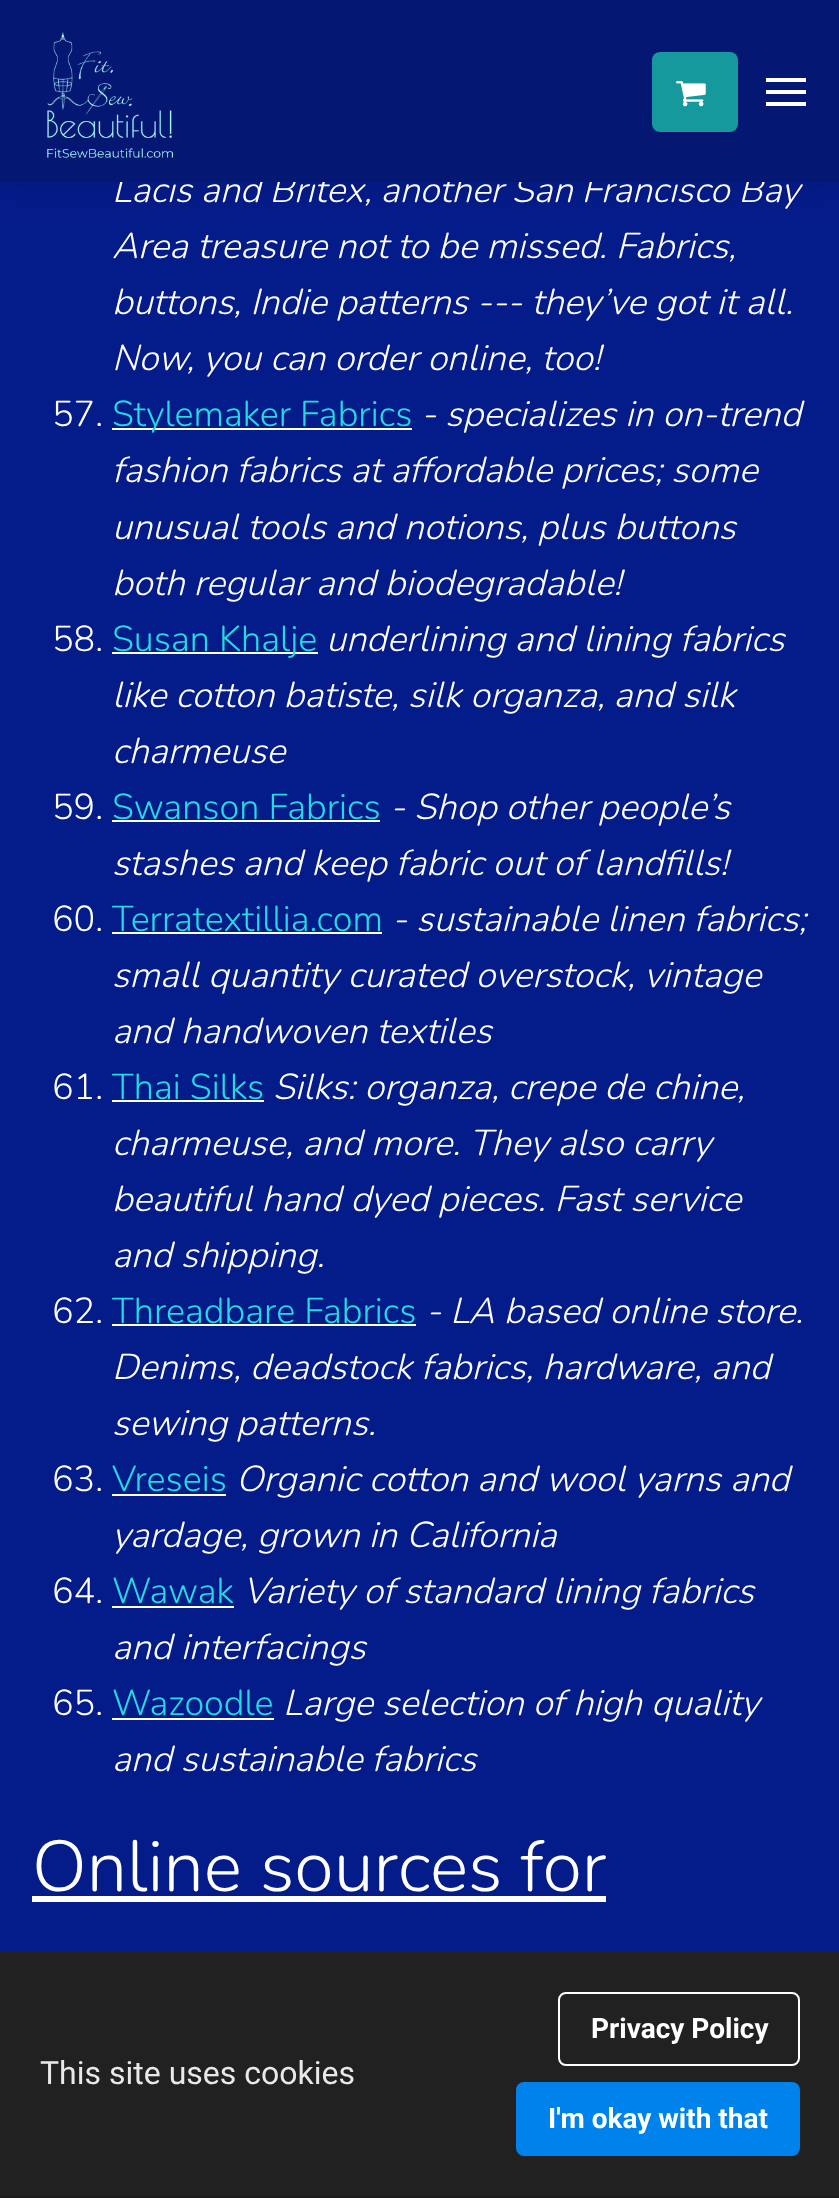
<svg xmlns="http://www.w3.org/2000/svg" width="839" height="2198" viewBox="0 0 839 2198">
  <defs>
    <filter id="blur1" x="-50%" y="-200%" width="200%" height="500%"><feGaussianBlur stdDeviation="16"/></filter>
  </defs>
  <rect width="100%" height="100%" fill="#041b8a"/>
  <rect x="0" y="4" width="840" height="182" fill="#000000" fill-opacity="0.12" filter="url(#blur1)"/>
  <text x="112" y="202" font-family="Nunito" font-size="36" font-weight="300" font-style="italic" fill="#ffffff">Lacis and Britex, another San Francisco Bay</text>
  <rect x="0" y="0" width="839" height="182" fill="#041772"/>
  <image x="47" y="32" width="127" height="126" href="img1.png"/>
  <rect x="652" y="52" width="86" height="80" rx="8" fill="#16999d"/>
  <image x="676" y="81" width="30" height="26" href="img2.png"/>
  <rect x="766" y="78" width="40" height="4" fill="#ffffff"/>
  <rect x="766" y="90" width="40" height="4" fill="#ffffff"/>
  <rect x="766" y="102" width="40" height="4" fill="#ffffff"/>
  <text x="112" y="258" font-family="Nunito" font-size="36" font-weight="300" font-style="italic" fill="#ffffff">Area treasure not to be missed. Fabrics,</text>
  <text x="112" y="314" font-family="Nunito" font-size="36" font-weight="300" font-style="italic" fill="#ffffff">buttons, Indie patterns --- they’ve got it all.</text>
  <text x="112" y="370" font-family="Nunito" font-size="36" font-weight="300" font-style="italic" fill="#ffffff">Now, you can order online, too!</text>
  <text x="52" y="426" font-family="Nunito" font-size="36" font-weight="300" fill="#ffffff">57.</text>
  <rect x="112" y="428" width="300" height="2" fill="#ffffff"/>
  <text x="112" y="426" font-family="Nunito" font-size="36" font-weight="300" fill="#24dae0">Stylemaker Fabrics</text>
  <text x="421" y="426" font-family="Nunito" font-size="36" font-weight="300" font-style="italic" fill="#ffffff">- specializes in on-trend</text>
  <text x="112" y="482" font-family="Nunito" font-size="36" font-weight="300" font-style="italic" fill="#ffffff">fashion fabrics at affordable prices; some</text>
  <text x="112" y="539" font-family="Nunito" font-size="36" font-weight="300" font-style="italic" fill="#ffffff">unusual tools and notions, plus buttons</text>
  <text x="112" y="595" font-family="Nunito" font-size="36" font-weight="300" font-style="italic" fill="#ffffff">both regular and biodegradable!</text>
  <text x="52" y="651" font-family="Nunito" font-size="36" font-weight="300" fill="#ffffff">58.</text>
  <rect x="112" y="652" width="206" height="2" fill="#ffffff"/>
  <text x="112" y="651" font-family="Nunito" font-size="36" font-weight="300" fill="#24dae0">Susan Khalje</text>
  <text x="326" y="651" font-family="Nunito" font-size="36" font-weight="300" font-style="italic" fill="#ffffff">underlining and lining fabrics</text>
  <text x="112" y="707" font-family="Nunito" font-size="36" font-weight="300" font-style="italic" fill="#ffffff">like cotton batiste, silk organza, and silk</text>
  <text x="112" y="763" font-family="Nunito" font-size="36" font-weight="300" font-style="italic" fill="#ffffff">charmeuse</text>
  <text x="52" y="819" font-family="Nunito" font-size="36" font-weight="300" fill="#ffffff">59.</text>
  <text x="112" y="819" font-family="Nunito" font-size="36" font-weight="300" fill="#24dae0">Swanson Fabrics</text>
  <rect x="112" y="820" width="268" height="2" fill="#ffffff"/>
  <text x="390" y="819" font-family="Nunito" font-size="36" font-weight="300" font-style="italic" fill="#ffffff">- Shop other people’s</text>
  <text x="112" y="875" font-family="Nunito" font-size="36" font-weight="300" font-style="italic" fill="#ffffff">stashes and keep fabric out of landfills!</text>
  <text x="52" y="931" font-family="Nunito" font-size="36" font-weight="300" fill="#ffffff">60.</text>
  <text x="112" y="931" font-family="Nunito" font-size="36" font-weight="300" fill="#24dae0">Terratextillia.com</text>
  <rect x="112" y="932" width="270" height="2" fill="#ffffff"/>
  <text x="392" y="931" font-family="Nunito" font-size="36" font-weight="300" font-style="italic" fill="#ffffff">- sustainable linen fabrics;</text>
  <text x="112" y="987" font-family="Nunito" font-size="36" font-weight="300" font-style="italic" fill="#ffffff">small quantity curated overstock, vintage</text>
  <text x="112" y="1043" font-family="Nunito" font-size="36" font-weight="300" font-style="italic" fill="#ffffff">and handwoven textiles</text>
  <text x="52" y="1099" font-family="Nunito" font-size="36" font-weight="300" fill="#ffffff">61.</text>
  <text x="112" y="1099" font-family="Nunito" font-size="36" font-weight="300" fill="#24dae0">Thai Silks</text>
  <rect x="112" y="1100" width="152" height="2" fill="#ffffff"/>
  <text x="273" y="1099" font-family="Nunito" font-size="36" font-weight="300" font-style="italic" fill="#ffffff">Silks: organza, crepe de chine,</text>
  <text x="112" y="1155" font-family="Nunito" font-size="36" font-weight="300" font-style="italic" fill="#ffffff">charmeuse, and more. They also carry</text>
  <text x="112" y="1211" font-family="Nunito" font-size="36" font-weight="300" font-style="italic" fill="#ffffff">beautiful hand dyed pieces. Fast service</text>
  <text x="112" y="1267" font-family="Nunito" font-size="36" font-weight="300" font-style="italic" fill="#ffffff">and shipping.</text>
  <text x="52" y="1323" font-family="Nunito" font-size="36" font-weight="300" fill="#ffffff">62.</text>
  <text x="112" y="1323" font-family="Nunito" font-size="36" font-weight="300" fill="#24dae0">Threadbare Fabrics</text>
  <rect x="112" y="1324" width="304" height="2" fill="#ffffff"/>
  <text x="426" y="1323" font-family="Nunito" font-size="36" font-weight="300" font-style="italic" fill="#ffffff">- LA based online store.</text>
  <text x="112" y="1379" font-family="Nunito" font-size="36" font-weight="300" font-style="italic" fill="#ffffff">Denims, deadstock fabrics, hardware, and</text>
  <text x="112" y="1435" font-family="Nunito" font-size="36" font-weight="300" font-style="italic" fill="#ffffff">sewing patterns.</text>
  <text x="52" y="1491" font-family="Nunito" font-size="36" font-weight="300" fill="#ffffff">63.</text>
  <text x="112" y="1491" font-family="Nunito" font-size="36" font-weight="300" fill="#24dae0">Vreseis</text>
  <rect x="112" y="1494" width="114" height="2" fill="#ffffff"/>
  <text x="236" y="1491" font-family="Nunito" font-size="36" font-weight="300" font-style="italic" fill="#ffffff">Organic cotton and wool yarns and</text>
  <text x="112" y="1547" font-family="Nunito" font-size="36" font-weight="300" font-style="italic" fill="#ffffff">yardage, grown in California</text>
  <text x="52" y="1603" font-family="Nunito" font-size="36" font-weight="300" fill="#ffffff">64.</text>
  <text x="112" y="1603" font-family="Nunito" font-size="36" font-weight="300" fill="#24dae0">Wawak</text>
  <rect x="112" y="1606" width="122" height="2" fill="#ffffff"/>
  <text x="243" y="1603" font-family="Nunito" font-size="36" font-weight="300" font-style="italic" fill="#ffffff">Variety of standard lining fabrics</text>
  <text x="112" y="1659" font-family="Nunito" font-size="36" font-weight="300" font-style="italic" fill="#ffffff">and interfacings</text>
  <text x="52" y="1715" font-family="Nunito" font-size="36" font-weight="300" fill="#ffffff">65.</text>
  <text x="112" y="1715" font-family="Nunito" font-size="36" font-weight="300" fill="#24dae0">Wazoodle</text>
  <rect x="112" y="1718" width="162" height="2" fill="#ffffff"/>
  <text x="283" y="1715" font-family="Nunito" font-size="36" font-weight="300" font-style="italic" fill="#ffffff">Large selection of high quality</text>
  <text x="112" y="1771" font-family="Nunito" font-size="36" font-weight="300" font-style="italic" fill="#ffffff">and sustainable fabrics</text>
  <text x="32" y="1891" font-family="Nunito" font-size="72" font-weight="300" fill="#ffffff">Online sources for</text>
  <rect x="32" y="1896" width="574" height="6" fill="#ffffff"/>
  <rect x="0" y="1952" width="839" height="244" fill="#212121"/>
  <rect x="0" y="2196" width="839" height="2" fill="#1c1c1c"/>
  <text x="40" y="2084" font-family="Roboto" font-size="32" fill="#e9e9e9">This site uses cookies</text>
  <rect x="559" y="1993" width="240" height="72" rx="7" fill="none" stroke="#ffffff" stroke-width="2"/>
  <text x="591" y="2038" font-family="Roboto" font-size="28" font-weight="bold" fill="#ffffff">Privacy Policy</text>
  <rect x="516" y="2082" width="284" height="74" rx="8" fill="#0082ed"/>
  <text x="548" y="2128" font-family="Roboto" font-size="28" font-weight="bold" fill="#ffffff">I'm okay with that</text>
</svg>
